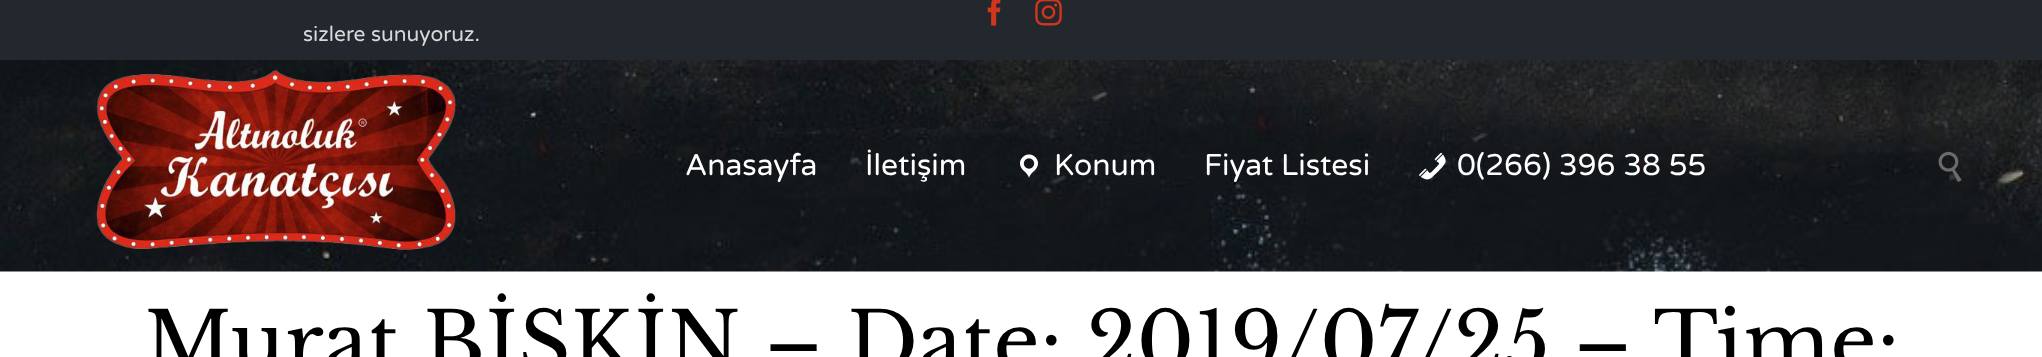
<svg xmlns="http://www.w3.org/2000/svg" width="2042" height="357" viewBox="0 0 2042 357">
  <rect width="100%" height="100%" fill="#23282f"/>
  <image x="987" y="0" width="14" height="26" href="img1.png"/>
  <image x="1035" y="0" width="27" height="26" href="img2.png"/>
  <text x="303" y="41" font-family="Varela Round" font-size="21" fill="#d8d8d8">sizlere sunuyoruz.</text>
  <rect x="0" y="271" width="2042" height="86" fill="#ffffff"/>
  <text x="144" y="371" word-spacing="0.5" font-family="Libre Baskerville" font-size="81" fill="#000000">Murat BİŞKİN – Date: 2019/07/25 – Time:</text>
  <image x="0" y="60" width="2042" height="212" href="img3.png"/>
  <image x="96" y="70" width="360" height="180" href="img4.png"/>
  <text x="685" y="175" font-family="Varela Round" font-size="30" fill="#ffffff">Anasayfa</text>
  <text x="865" y="175" font-family="Varela Round" font-size="30" fill="#ffffff">İletişim</text>
  <image x="1020" y="154" width="18" height="24" href="img5.png"/>
  <text x="1054" y="175" font-family="Varela Round" font-size="30" fill="#ffffff">Konum</text>
  <text x="1204" y="175" font-family="Varela Round" font-size="30" fill="#ffffff">Fiyat Listesi</text>
  <image x="1419" y="152" width="27" height="28" href="img6.png"/>
  <text x="1457" y="175" font-family="Varela Round" font-size="30" fill="#ffffff">0(266) 396 38 55</text>
  <image x="1938" y="151" width="24" height="31" href="img7.png"/>
</svg>
